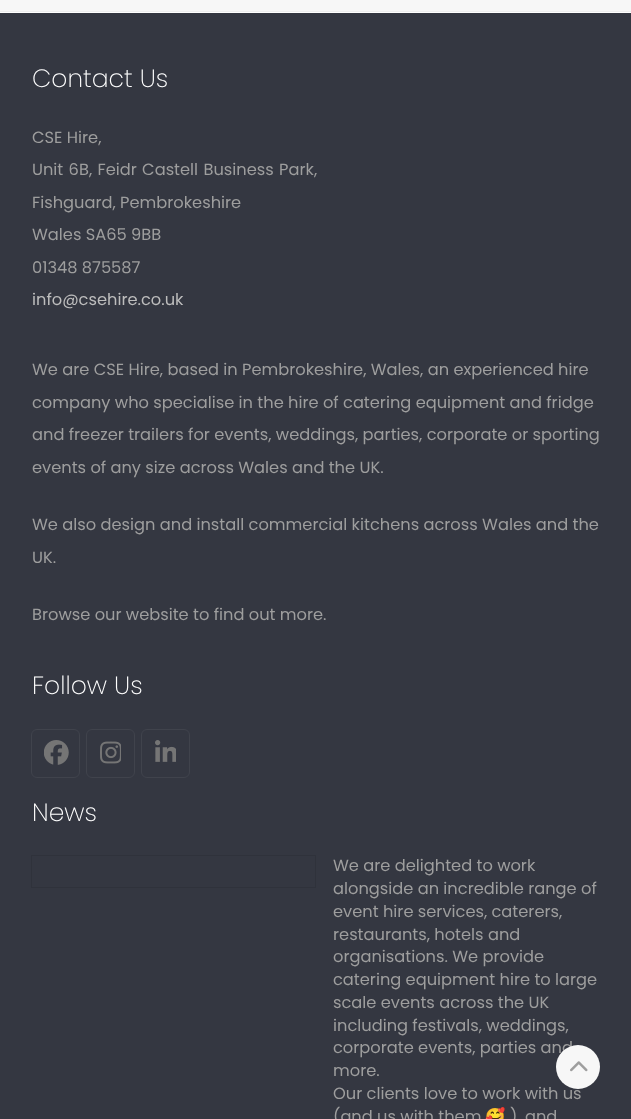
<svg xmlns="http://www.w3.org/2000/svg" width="631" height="1119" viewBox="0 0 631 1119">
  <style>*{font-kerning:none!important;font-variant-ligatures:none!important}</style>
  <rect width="100%" height="100%" fill="#ffffff"/>
  <rect x="0" y="0" width="631" height="11" fill="#f7f7f7"/>
  <rect x="0" y="11" width="631" height="1" fill="#eeeeee"/>
  <rect x="0" y="13" width="631" height="1106" fill="#343741"/>
  <text x="32" y="87" font-family="Poppins" font-size="25" font-weight="200" fill="#ffffff">Contact Us</text>
  <text x="32" y="143" font-family="Poppins" font-size="16.25" fill="#9e9e9e">CSE Hire,</text>
  <text x="32" y="175" word-spacing="1" font-family="Poppins" font-size="16.25" fill="#9e9e9e">Unit 6B, Feidr Castell Business Park,</text>
  <text x="32" y="208" font-family="Poppins" font-size="16.25" fill="#9e9e9e">Fishguard, Pembrokeshire</text>
  <text x="32" y="240" font-family="Poppins" font-size="16.25" fill="#9e9e9e">Wales SA65 9BB</text>
  <text x="32" y="273" font-family="Poppins" font-size="16.25" fill="#9e9e9e">01348 875587</text>
  <text x="32" y="305" font-family="Poppins" font-size="16.25" fill="#bdbdbd">info@csehire.co.uk</text>
  <text x="32" y="375" font-family="Poppins" font-size="16.25" fill="#9e9e9e">We are CSE Hire, based in Pembrokeshire, Wales, an experienced hire</text>
  <text x="32" y="408" font-family="Poppins" font-size="16.25" fill="#9e9e9e">company who specialise in the hire of catering equipment and fridge</text>
  <text x="32" y="440" font-family="Poppins" font-size="16.25" fill="#9e9e9e">and freezer trailers for events, weddings, parties, corporate or sporting</text>
  <text x="32" y="473" font-family="Poppins" font-size="16.25" fill="#9e9e9e">events of any size across Wales and the UK.</text>
  <text x="32" y="530" font-family="Poppins" font-size="16.25" fill="#9e9e9e">We also design and install commercial kitchens across Wales and the</text>
  <text x="32" y="563" font-family="Poppins" font-size="16.25" fill="#9e9e9e">UK.</text>
  <text x="32" y="620" font-family="Poppins" font-size="16.25" fill="#9e9e9e">Browse our website to find out more.</text>
  <text x="32" y="694" font-family="Poppins" font-size="25" font-weight="200" fill="#ffffff">Follow Us</text>
  <rect x="31.5" y="729.5" width="48" height="48" rx="5.5" fill="none" stroke="#40434c"/>
  <image x="44" y="740" width="25" height="25" href="img1.png"/>
  <rect x="86.5" y="729.5" width="48" height="48" rx="5.5" fill="none" stroke="#40434c"/>
  <image x="100" y="741" width="21" height="23" href="img2.png"/>
  <rect x="141.5" y="729.5" width="48" height="48" rx="5.5" fill="none" stroke="#40434c"/>
  <image x="155" y="740" width="21" height="22" href="img3.png"/>
  <text x="32" y="821" font-family="Poppins" font-size="25" font-weight="200" fill="#ffffff">News</text>
  <rect x="31.5" y="855.5" width="284" height="32" fill="none" stroke="#2f323b"/>
  <text x="333" y="871" font-family="Poppins" font-size="16.25" fill="#9e9e9e">We are delighted to work</text>
  <text x="333" y="894" font-family="Poppins" font-size="16.25" fill="#9e9e9e">alongside an incredible range of</text>
  <text x="333" y="917" font-family="Poppins" font-size="16.25" fill="#9e9e9e">event hire services, caterers,</text>
  <text x="333" y="940" font-family="Poppins" font-size="16.25" fill="#9e9e9e">restaurants, hotels and</text>
  <text x="333" y="962" font-family="Poppins" font-size="16.25" fill="#9e9e9e">organisations. We provide</text>
  <text x="333" y="985" font-family="Poppins" font-size="16.25" fill="#9e9e9e">catering equipment hire to large</text>
  <text x="333" y="1008" font-family="Poppins" font-size="16.25" fill="#9e9e9e">scale events across the UK</text>
  <text x="333" y="1031" font-family="Poppins" font-size="16.25" fill="#9e9e9e">including festivals, weddings,</text>
  <text x="333" y="1053" font-family="Poppins" font-size="16.25" fill="#9e9e9e">corporate events, parties and</text>
  <text x="333" y="1076" font-family="Poppins" font-size="16.25" fill="#9e9e9e">more.</text>
  <text x="333" y="1099" font-family="Poppins" font-size="16.25" fill="#9e9e9e">Our clients love to work with us</text>
  <text x="333" y="1122" font-family="Poppins" font-size="16.25" fill="#9e9e9e">(and us with them</text>
  <text x="485" y="1122" font-family="Noto Color Emoji" font-size="16.25" fill="#9e9e9e">🥰</text>
  <text x="510" y="1122" font-family="Poppins" font-size="16.25" fill="#9e9e9e">), and</text>
  <circle cx="578" cy="1067" r="22" fill="#f7f7f7"/>
  <image x="570" y="1061" width="18" height="11" href="img4.png"/>
</svg>
